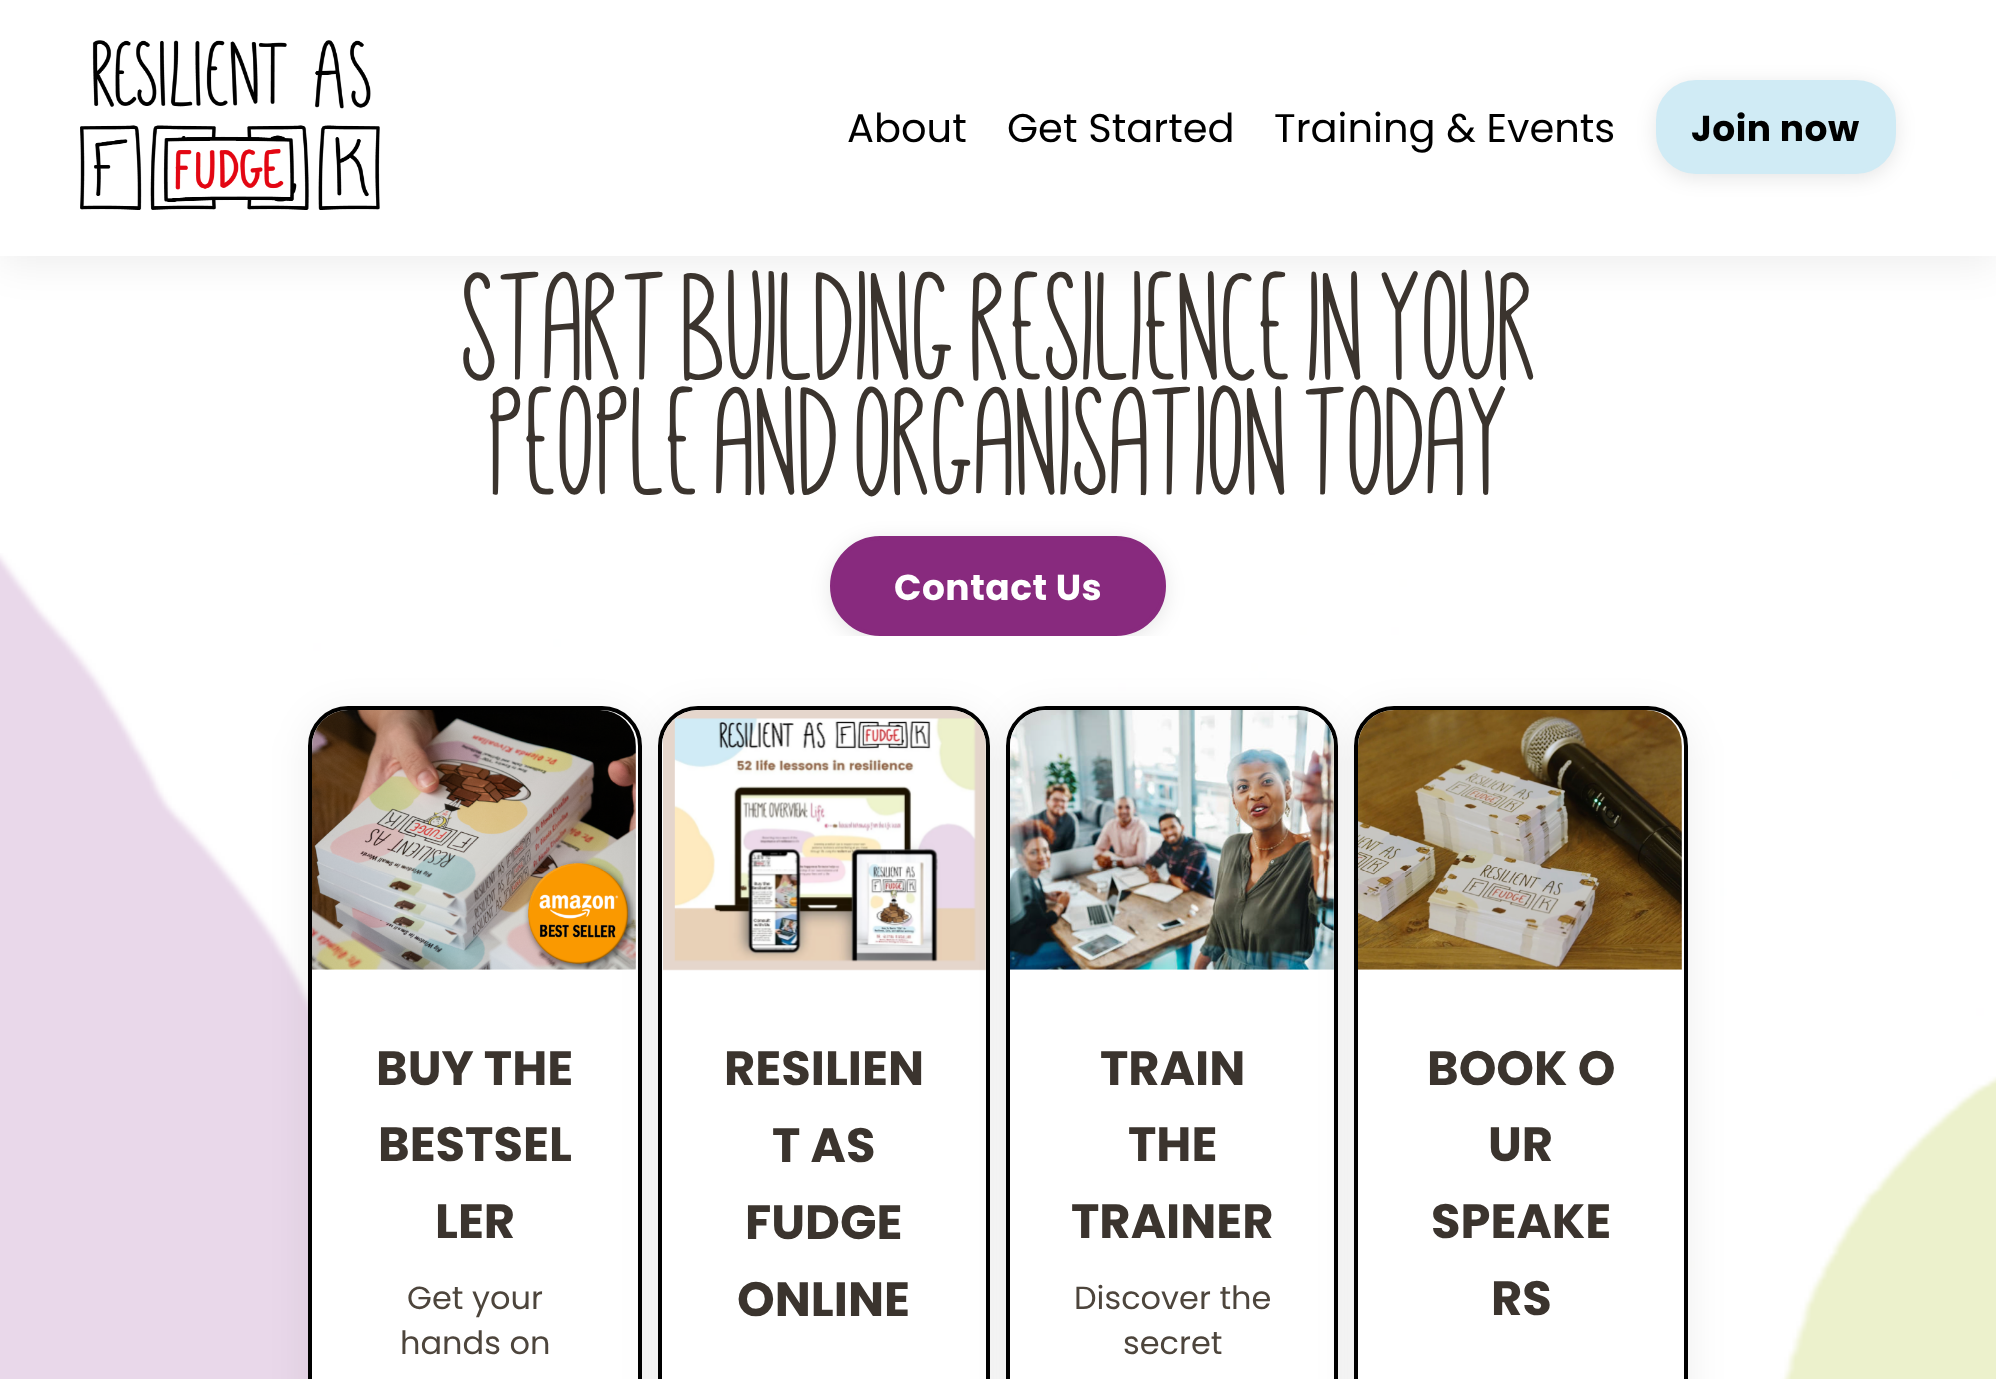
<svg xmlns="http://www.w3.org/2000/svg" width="1996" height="1379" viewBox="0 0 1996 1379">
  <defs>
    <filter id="blur1" x="-50%" y="-200%" width="200%" height="500%"><feGaussianBlur stdDeviation="20"/></filter>
    <filter id="blur2" x="-50%" y="-200%" width="200%" height="500%"><feGaussianBlur stdDeviation="10"/></filter>
    <clipPath id="clip1"><rect x="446" y="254" width="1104" height="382" rx="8"/></clipPath>
  </defs>
  <rect width="100%" height="100%" fill="#ffffff"/>
  <rect x="0" y="8" width="1996" height="256" fill="#000000" fill-opacity="0.07" filter="url(#blur1)"/>
  <rect x="0" y="0" width="1996" height="256" fill="#ffffff"/>
  <image x="80" y="40" width="300" height="170" href="img1.png"/>
  <text x="847" y="142" font-family="Poppins" font-size="40" fill="#000000">About</text>
  <text x="1007" y="142" font-family="Poppins" font-size="40" fill="#000000">Get Started</text>
  <text x="1274" y="142" font-family="Poppins" font-size="40" fill="#000000">Training &amp; Events</text>
  <rect x="1656" y="84" width="240" height="94" rx="40" fill="#000000" fill-opacity="0.1" filter="url(#blur2)"/>
  <rect x="1658" y="82" width="236" height="90" rx="38" fill="#d0ebf5" stroke="#d0ebf5" stroke-width="4"/>
  <text x="1691" y="141" font-family="Poppins" font-size="36" font-weight="bold" letter-spacing="0.5" fill="#000000">Join now</text>
  <image x="0" y="553" width="1996" height="826" href="img2.png"/>
  <text x="460" y="367" font-family="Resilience" font-size="72" fill="#3b342e">Start Building Resilience In Your</text>
  <text x="487" y="482" font-family="Resilience" font-size="72" fill="#3b342e">People and Organisation today</text>
  <g clip-path="url(#clip1)">
    <rect x="830" y="540" width="336" height="100" rx="50" fill="#000000" fill-opacity="0.1" filter="url(#blur2)"/>
  </g>
  <rect x="832" y="538" width="332" height="96" rx="48" fill="#882a7e" stroke="#882a7e" stroke-width="4"/>
  <text x="894" y="600" font-family="Poppins" font-size="36" font-weight="bold" letter-spacing="0.5" fill="#ffffff">Contact Us</text>
  <rect x="308" y="714" width="334" height="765" rx="40" fill="#000000" fill-opacity="0.07" filter="url(#blur1)"/>
  <rect x="310" y="708" width="330" height="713" rx="38" fill="#ffffff" stroke="#000000" stroke-width="4"/>
  <image x="312" y="710" width="324" height="260" href="img3.png"/>
  <text x="376" y="1085" font-family="Poppins" font-size="48" font-weight="bold" fill="#3b342e">BUY THE</text>
  <text x="378" y="1161" font-family="Poppins" font-size="48" font-weight="bold" fill="#3b342e">BESTSEL</text>
  <text x="435" y="1238" font-family="Poppins" font-size="48" font-weight="bold" fill="#3b342e">LER</text>
  <text x="407" y="1309" font-family="Poppins" font-size="32" fill="#4d453c">Get your</text>
  <text x="400" y="1354" font-family="Poppins" font-size="32" fill="#4d453c">hands on</text>
  <rect x="658" y="714" width="332" height="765" rx="40" fill="#000000" fill-opacity="0.07" filter="url(#blur1)"/>
  <rect x="660" y="708" width="328" height="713" rx="38" fill="#ffffff" stroke="#000000" stroke-width="4"/>
  <image x="662" y="710" width="324" height="261" href="img4.png"/>
  <text x="724" y="1085" font-family="Poppins" font-size="48" font-weight="bold" fill="#3b342e">RESILIEN</text>
  <text x="772" y="1162" font-family="Poppins" font-size="48" font-weight="bold" fill="#3b342e">T AS</text>
  <text x="745" y="1239" font-family="Poppins" font-size="48" font-weight="bold" fill="#3b342e">FUDGE</text>
  <text x="737" y="1316" font-family="Poppins" font-size="48" font-weight="bold" fill="#3b342e">ONLINE</text>
  <rect x="1006" y="714" width="332" height="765" rx="40" fill="#000000" fill-opacity="0.07" filter="url(#blur1)"/>
  <rect x="1008" y="708" width="328" height="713" rx="38" fill="#ffffff" stroke="#000000" stroke-width="4"/>
  <image x="1010" y="710" width="324" height="260" href="img5.png"/>
  <text x="1100" y="1085" font-family="Poppins" font-size="48" font-weight="bold" fill="#3b342e">TRAIN</text>
  <text x="1128" y="1161" font-family="Poppins" font-size="48" font-weight="bold" fill="#3b342e">THE</text>
  <text x="1071" y="1238" font-family="Poppins" font-size="48" font-weight="bold" fill="#3b342e">TRAINER</text>
  <text x="1074" y="1309" font-family="Poppins" font-size="32" fill="#4d453c">Discover the</text>
  <text x="1123" y="1354" font-family="Poppins" font-size="32" fill="#4d453c">secret</text>
  <rect x="1354" y="714" width="334" height="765" rx="40" fill="#000000" fill-opacity="0.07" filter="url(#blur1)"/>
  <rect x="1356" y="708" width="330" height="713" rx="38" fill="#ffffff" stroke="#000000" stroke-width="4"/>
  <image x="1358" y="710" width="324" height="260" href="img6.png"/>
  <text x="1427" y="1085" font-family="Poppins" font-size="48" font-weight="bold" fill="#3b342e">BOOK O</text>
  <text x="1488" y="1161" font-family="Poppins" font-size="48" font-weight="bold" fill="#3b342e">UR</text>
  <text x="1431" y="1238" font-family="Poppins" font-size="48" font-weight="bold" fill="#3b342e">SPEAKE</text>
  <text x="1491" y="1315" font-family="Poppins" font-size="48" font-weight="bold" fill="#3b342e">RS</text>
</svg>
